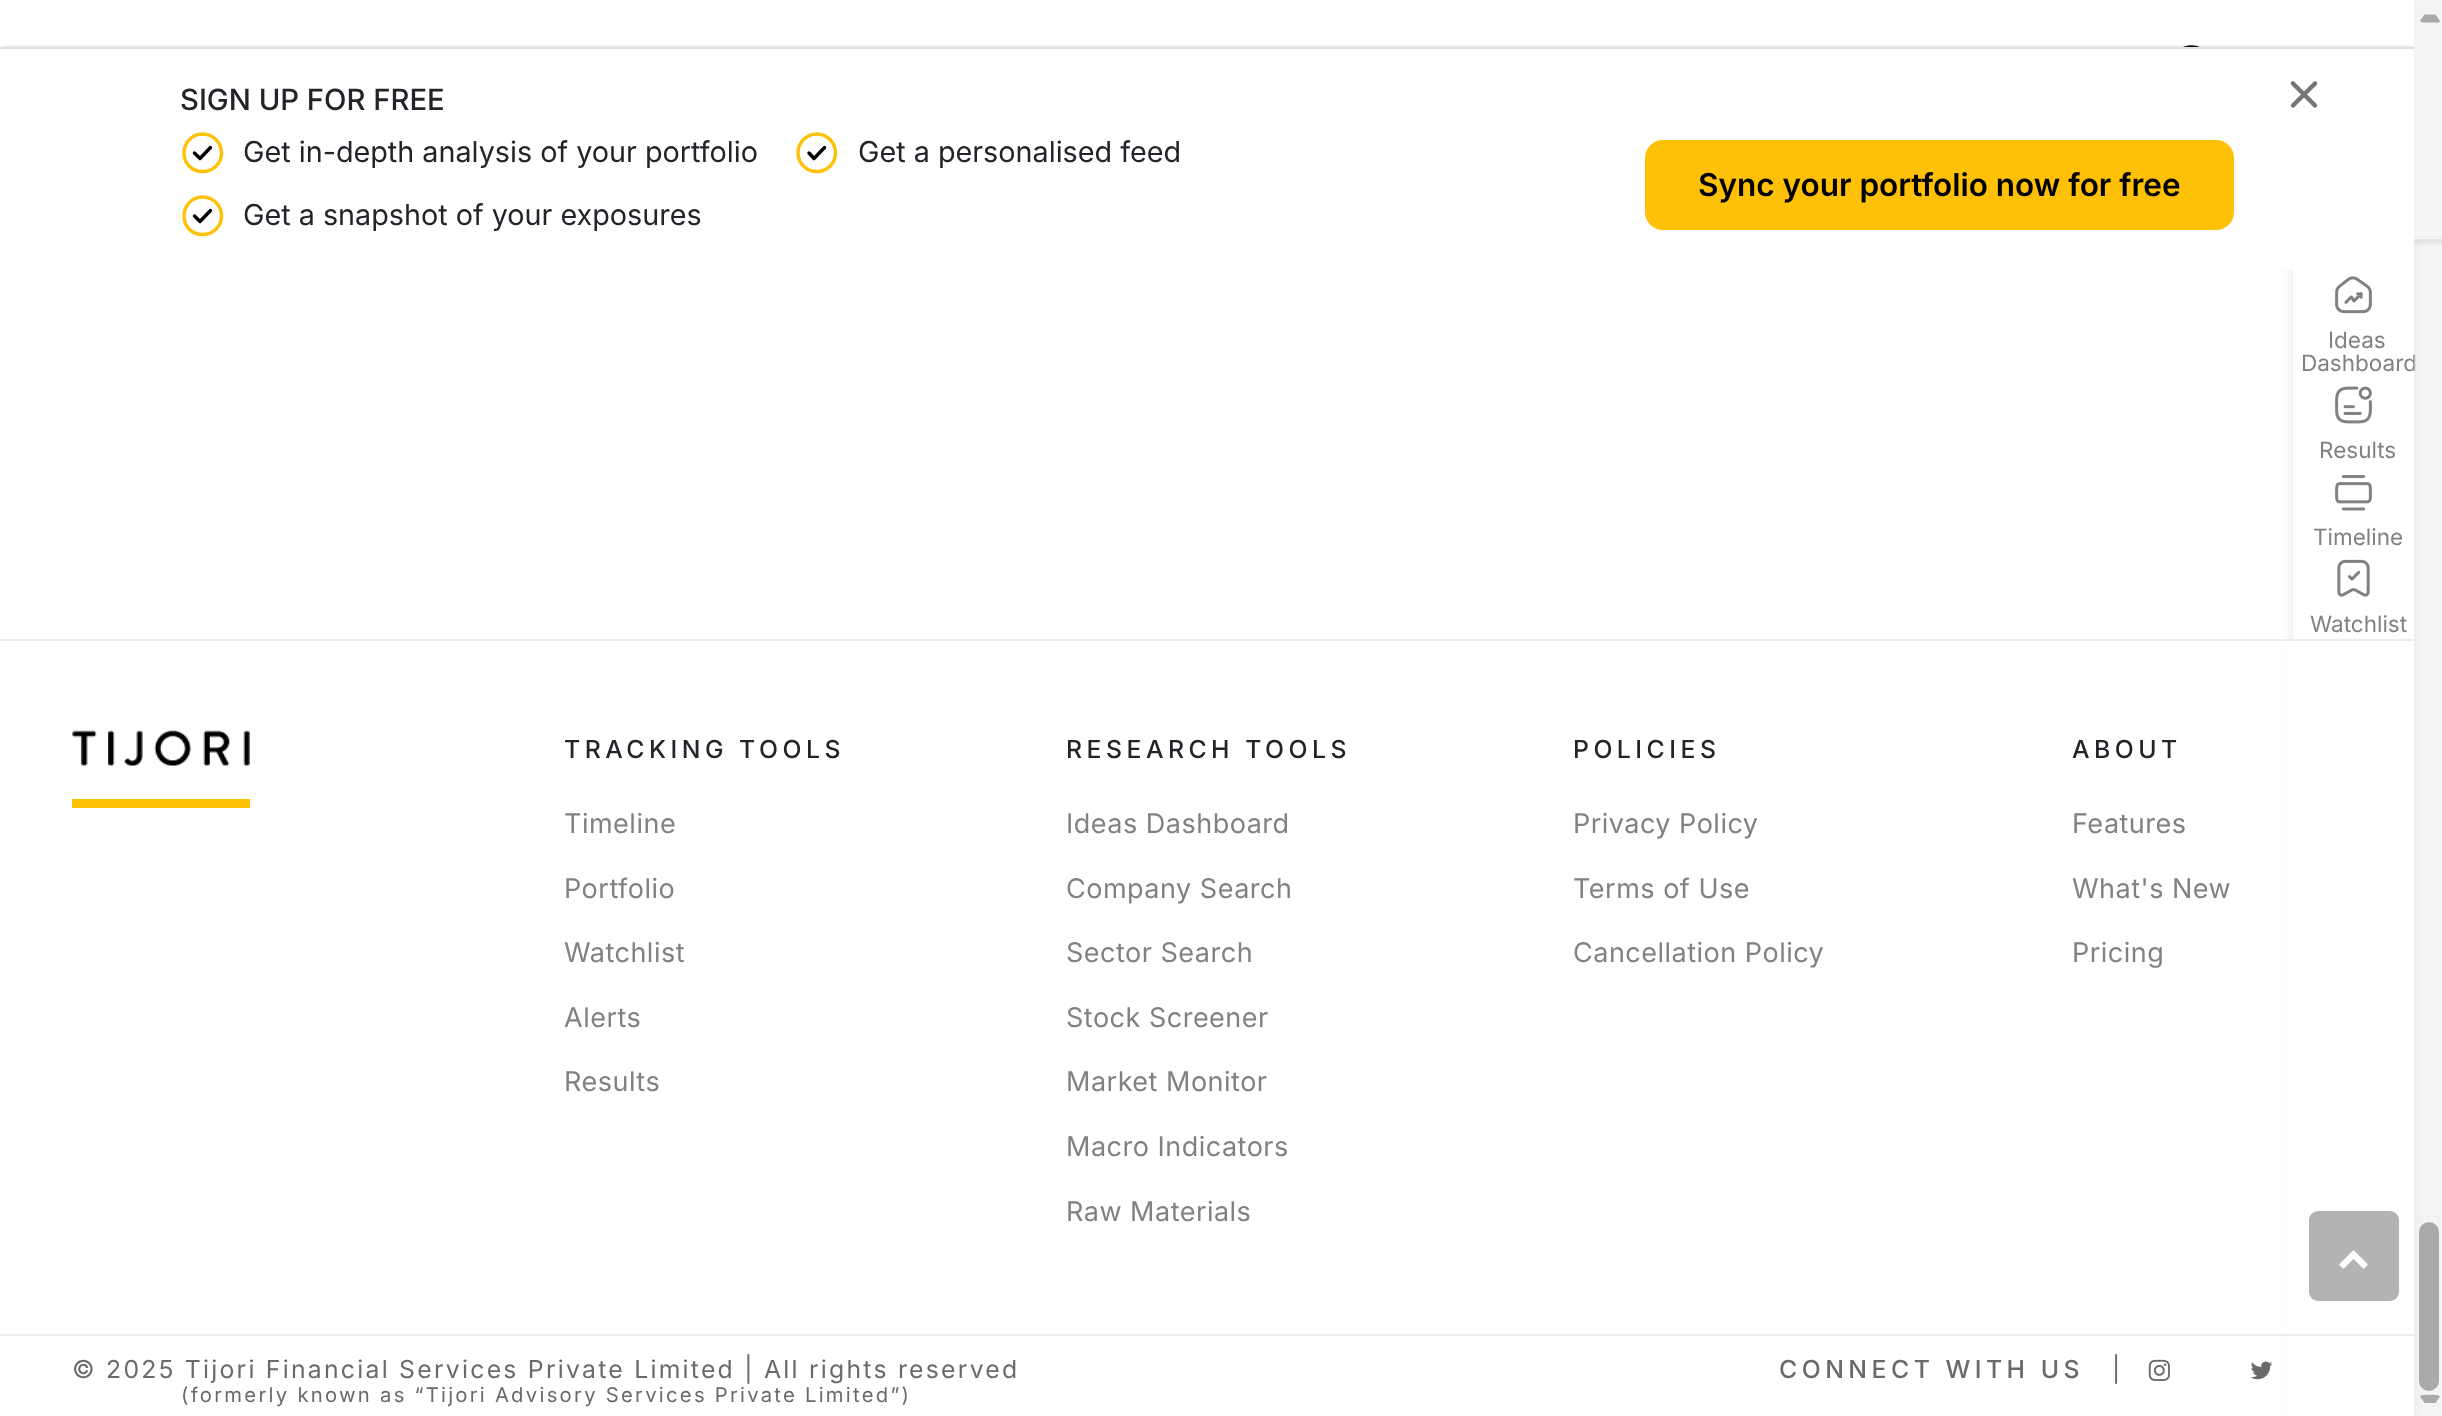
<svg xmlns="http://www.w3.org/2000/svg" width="2442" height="1416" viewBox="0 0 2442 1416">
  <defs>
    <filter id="blur1" x="-50%" y="-200%" width="200%" height="500%"><feGaussianBlur stdDeviation="2"/></filter>
    <clipPath id="clip1"><path d="M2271 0H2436V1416H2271ZM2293 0H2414V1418H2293Z" clip-rule="evenodd"/></clipPath>
    <filter id="blur2" x="-50%" y="-200%" width="200%" height="500%"><feGaussianBlur stdDeviation="7"/></filter>
    <clipPath id="clip2"><rect x="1" y="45" width="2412" height="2"/></clipPath>
  </defs>
  <rect width="100%" height="100%" fill="#ffffff"/>
  <rect x="0" y="2" width="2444" height="241" fill="#000000" fill-opacity="0.17" filter="url(#blur1)"/>
  <g clip-path="url(#clip1)">
    <rect x="2293" y="2" width="121" height="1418" fill="#000000" fill-opacity="0.1" filter="url(#blur2)"/>
  </g>
  <rect x="0" y="0" width="2442" height="239" fill="#ffffff"/>
  <path d="M2175 68C2175 46 2208 46 2208 68C2208 89 2175 89 2175 68ZM2223 95L2209 81C2217 71 2215 56 2204 49C2198 45 2190 44 2183 47C2177 49 2173 53 2171 59C2162 80 2187 99 2205 85L2219 99Z" fill="#121212" fill-rule="evenodd"/>
  <rect x="0" y="49" width="2414" height="221" fill="#ffffff"/>
  <g clip-path="url(#clip2)">
    <rect x="2" y="47" width="2410" height="70" fill="#000000" fill-opacity="0.17" filter="url(#blur1)"/>
  </g>
  <rect x="0" y="47" width="2414" height="2" fill="#e1e1e1"/>
  <text x="180" y="110" font-family="Inter" font-size="29.25" font-weight="500" fill="#212529">SIGN UP FOR FREE</text>
  <path d="M2315 83.5L2293 105.5M2293 83.5L2315 105.5" fill="none" stroke="#777575" stroke-width="4.5" stroke-linecap="round" stroke-linejoin="round"/>
  <path d="M202.5 171.5C213 171.5 221.5 163.5 221.5 153C221.5 142.5 213 134 202.5 134C192 134 184 142.5 184 153C184 163.5 192 171.5 202.5 171.5Z" fill="none" stroke="#ffc008" stroke-width="3.4" stroke-linecap="round" stroke-linejoin="round"/>
  <path d="M194.5 153L200 158.5L210.5 147.5" fill="none" stroke="#000000" stroke-width="3.4" stroke-linecap="round" stroke-linejoin="round"/>
  <text x="243" y="162" font-family="Inter" font-size="28.75" fill="#212529">Get in-depth analysis of your portfolio</text>
  <path d="M817 171.5C827 171.5 835.5 163.5 835.5 153C835.5 142.5 827 134 817 134C806.5 134 798 142.5 798 153C798 163.5 806.5 171.5 817 171.5Z" fill="none" stroke="#ffc008" stroke-width="3.4" stroke-linecap="round" stroke-linejoin="round"/>
  <path d="M809 153L814 158.5L824.5 147.5" fill="none" stroke="#000000" stroke-width="3.4" stroke-linecap="round" stroke-linejoin="round"/>
  <text x="858" y="162" font-family="Inter" font-size="28.75" fill="#212529">Get a personalised feed</text>
  <path d="M202.5 234.5C213 234.5 221.5 226.5 221.5 216C221.5 205.5 213 197 202.5 197C192 197 184 205.5 184 216C184 226.5 192 234.5 202.5 234.5Z" fill="none" stroke="#ffc008" stroke-width="3.4" stroke-linecap="round" stroke-linejoin="round"/>
  <path d="M194.5 216L200 221.5L210.5 210.5" fill="none" stroke="#000000" stroke-width="3.4" stroke-linecap="round" stroke-linejoin="round"/>
  <text x="243" y="225" font-family="Inter" font-size="28.75" fill="#212529">Get a snapshot of your exposures</text>
  <rect x="1645" y="140" width="589" height="90" rx="18" fill="#ffc008"/>
  <text x="1698" y="196" font-family="Inter" font-size="31.5" font-weight="600" fill="#000000">Sync your portfolio now for free</text>
  <rect x="2414" y="239" width="28" height="2" fill="#dedddd"/>
  <text x="2301" y="371" font-family="Inter" font-size="22.5" fill="#818181">Dashboard</text>
  <rect x="2414" y="0" width="28" height="1416" fill="#e9e9e9" fill-opacity="0.52"/>
  <path d="M2424.5 22.5C2423 22.5 2421 22 2420 21L2424.5 14.5H2435.5L2440 21C2439.5 22 2438.5 22.5 2437 22.5Z" fill="#aaaaaa"/>
  <rect x="2419" y="1222" width="20" height="169" rx="10" fill="#000000" fill-opacity="0.3"/>
  <path d="M2423 1395C2426 1395 2438 1394 2440 1396.5L2435.5 1403H2424.5L2420 1396.5C2420.5 1395.5 2421.5 1395 2423 1395Z" fill="#aaaaaa"/>
  <image x="2335" y="276" width="37" height="38" href="img1.png"/>
  <text x="2328" y="348" font-family="Inter" font-size="22.5" fill="#818181">Ideas</text>
  <image x="2335" y="386" width="37" height="38" href="img2.png"/>
  <text x="2319" y="458" font-family="Inter" font-size="22.5" fill="#818181">Results</text>
  <image x="2335" y="475" width="37" height="36" href="img3.png"/>
  <text x="2313" y="545" font-family="Inter" font-size="22.5" fill="#818181">Timeline</text>
  <image x="2337" y="559" width="33" height="38" href="img4.png"/>
  <text x="2310" y="632" font-family="Inter" font-size="22.5" fill="#818181">Watchlist</text>
  <rect x="2309" y="1211" width="90" height="90" rx="9" fill="#b3b3b3"/>
  <image x="2339" y="1250" width="29" height="19" href="img5.png"/>
  <rect x="2284" y="641" width="9" height="775" fill="#ffffff"/>
  <rect x="0" y="639" width="2414" height="2" fill="#ececee"/>
  <image x="72" y="730" width="178" height="36" href="img6.png"/>
  <rect x="72" y="799" width="178" height="9" fill="#ffc108"/>
  <text x="564" y="758" font-family="Inter" font-size="24.75" font-weight="500" letter-spacing="4.5" fill="#212529">TRACKING TOOLS</text>
  <text x="564" y="833" font-family="Inter" font-size="27" letter-spacing="0.5" fill="#818181">Timeline</text>
  <text x="564" y="898" font-family="Inter" font-size="27" letter-spacing="0.5" fill="#818181">Portfolio</text>
  <text x="564" y="962" font-family="Inter" font-size="27" letter-spacing="0.5" fill="#818181">Watchlist</text>
  <text x="564" y="1027" font-family="Inter" font-size="27" letter-spacing="0.5" fill="#818181">Alerts</text>
  <text x="564" y="1091" font-family="Inter" font-size="27" letter-spacing="0.5" fill="#818181">Results</text>
  <text x="1066" y="758" font-family="Inter" font-size="24.75" font-weight="500" letter-spacing="4.5" fill="#212529">RESEARCH TOOLS</text>
  <text x="1066" y="833" font-family="Inter" font-size="27" letter-spacing="0.5" fill="#818181">Ideas Dashboard</text>
  <text x="1066" y="898" font-family="Inter" font-size="27" letter-spacing="0.5" fill="#818181">Company Search</text>
  <text x="1066" y="962" font-family="Inter" font-size="27" letter-spacing="0.5" fill="#818181">Sector Search</text>
  <text x="1066" y="1027" font-family="Inter" font-size="27" letter-spacing="0.5" fill="#818181">Stock Screener</text>
  <text x="1066" y="1091" font-family="Inter" font-size="27" letter-spacing="0.5" fill="#818181">Market Monitor</text>
  <text x="1066" y="1156" font-family="Inter" font-size="27" letter-spacing="0.5" fill="#818181">Macro Indicators</text>
  <text x="1066" y="1221" font-family="Inter" font-size="27" letter-spacing="0.5" fill="#818181">Raw Materials</text>
  <text x="1573" y="758" font-family="Inter" font-size="24.75" font-weight="500" letter-spacing="4.5" fill="#212529">POLICIES</text>
  <text x="1573" y="833" font-family="Inter" font-size="27" letter-spacing="0.5" fill="#818181">Privacy Policy</text>
  <text x="1573" y="898" font-family="Inter" font-size="27" letter-spacing="0.5" fill="#818181">Terms of Use</text>
  <text x="1573" y="962" font-family="Inter" font-size="27" letter-spacing="0.5" fill="#818181">Cancellation Policy</text>
  <text x="2072" y="758" font-family="Inter" font-size="24.75" font-weight="500" letter-spacing="4.5" fill="#212529">ABOUT</text>
  <text x="2072" y="833" font-family="Inter" font-size="27" letter-spacing="0.5" fill="#818181">Features</text>
  <text x="2072" y="898" font-family="Inter" font-size="27" letter-spacing="0.5" fill="#818181">What's New</text>
  <text x="2072" y="962" font-family="Inter" font-size="27" letter-spacing="0.5" fill="#818181">Pricing</text>
  <rect x="0" y="1334" width="2414" height="2" fill="#ececee"/>
  <text x="72" y="1378" font-family="Inter" font-size="24.75" letter-spacing="2.25" fill="#686a6b">© 2025 Tijori Financial Services Private Limited | All rights reserved</text>
  <text x="181" y="1402" font-family="Inter" font-size="20.25" letter-spacing="2.25" fill="#686a6b">(formerly known as “Tijori Advisory Services Private Limited”)</text>
  <text x="1779" y="1378" font-family="Inter" font-size="24.75" font-weight="500" letter-spacing="4.5" fill="#686a6b">CONNECT WITH US</text>
  <text x="2112" y="1378" font-family="Inter" font-size="24.75" letter-spacing="2.25" fill="#686a6b">|</text>
  <image x="2148" y="1359" width="22" height="22" href="img7.png"/>
  <image x="2250" y="1361" width="23" height="19" href="img8.png"/>
</svg>
